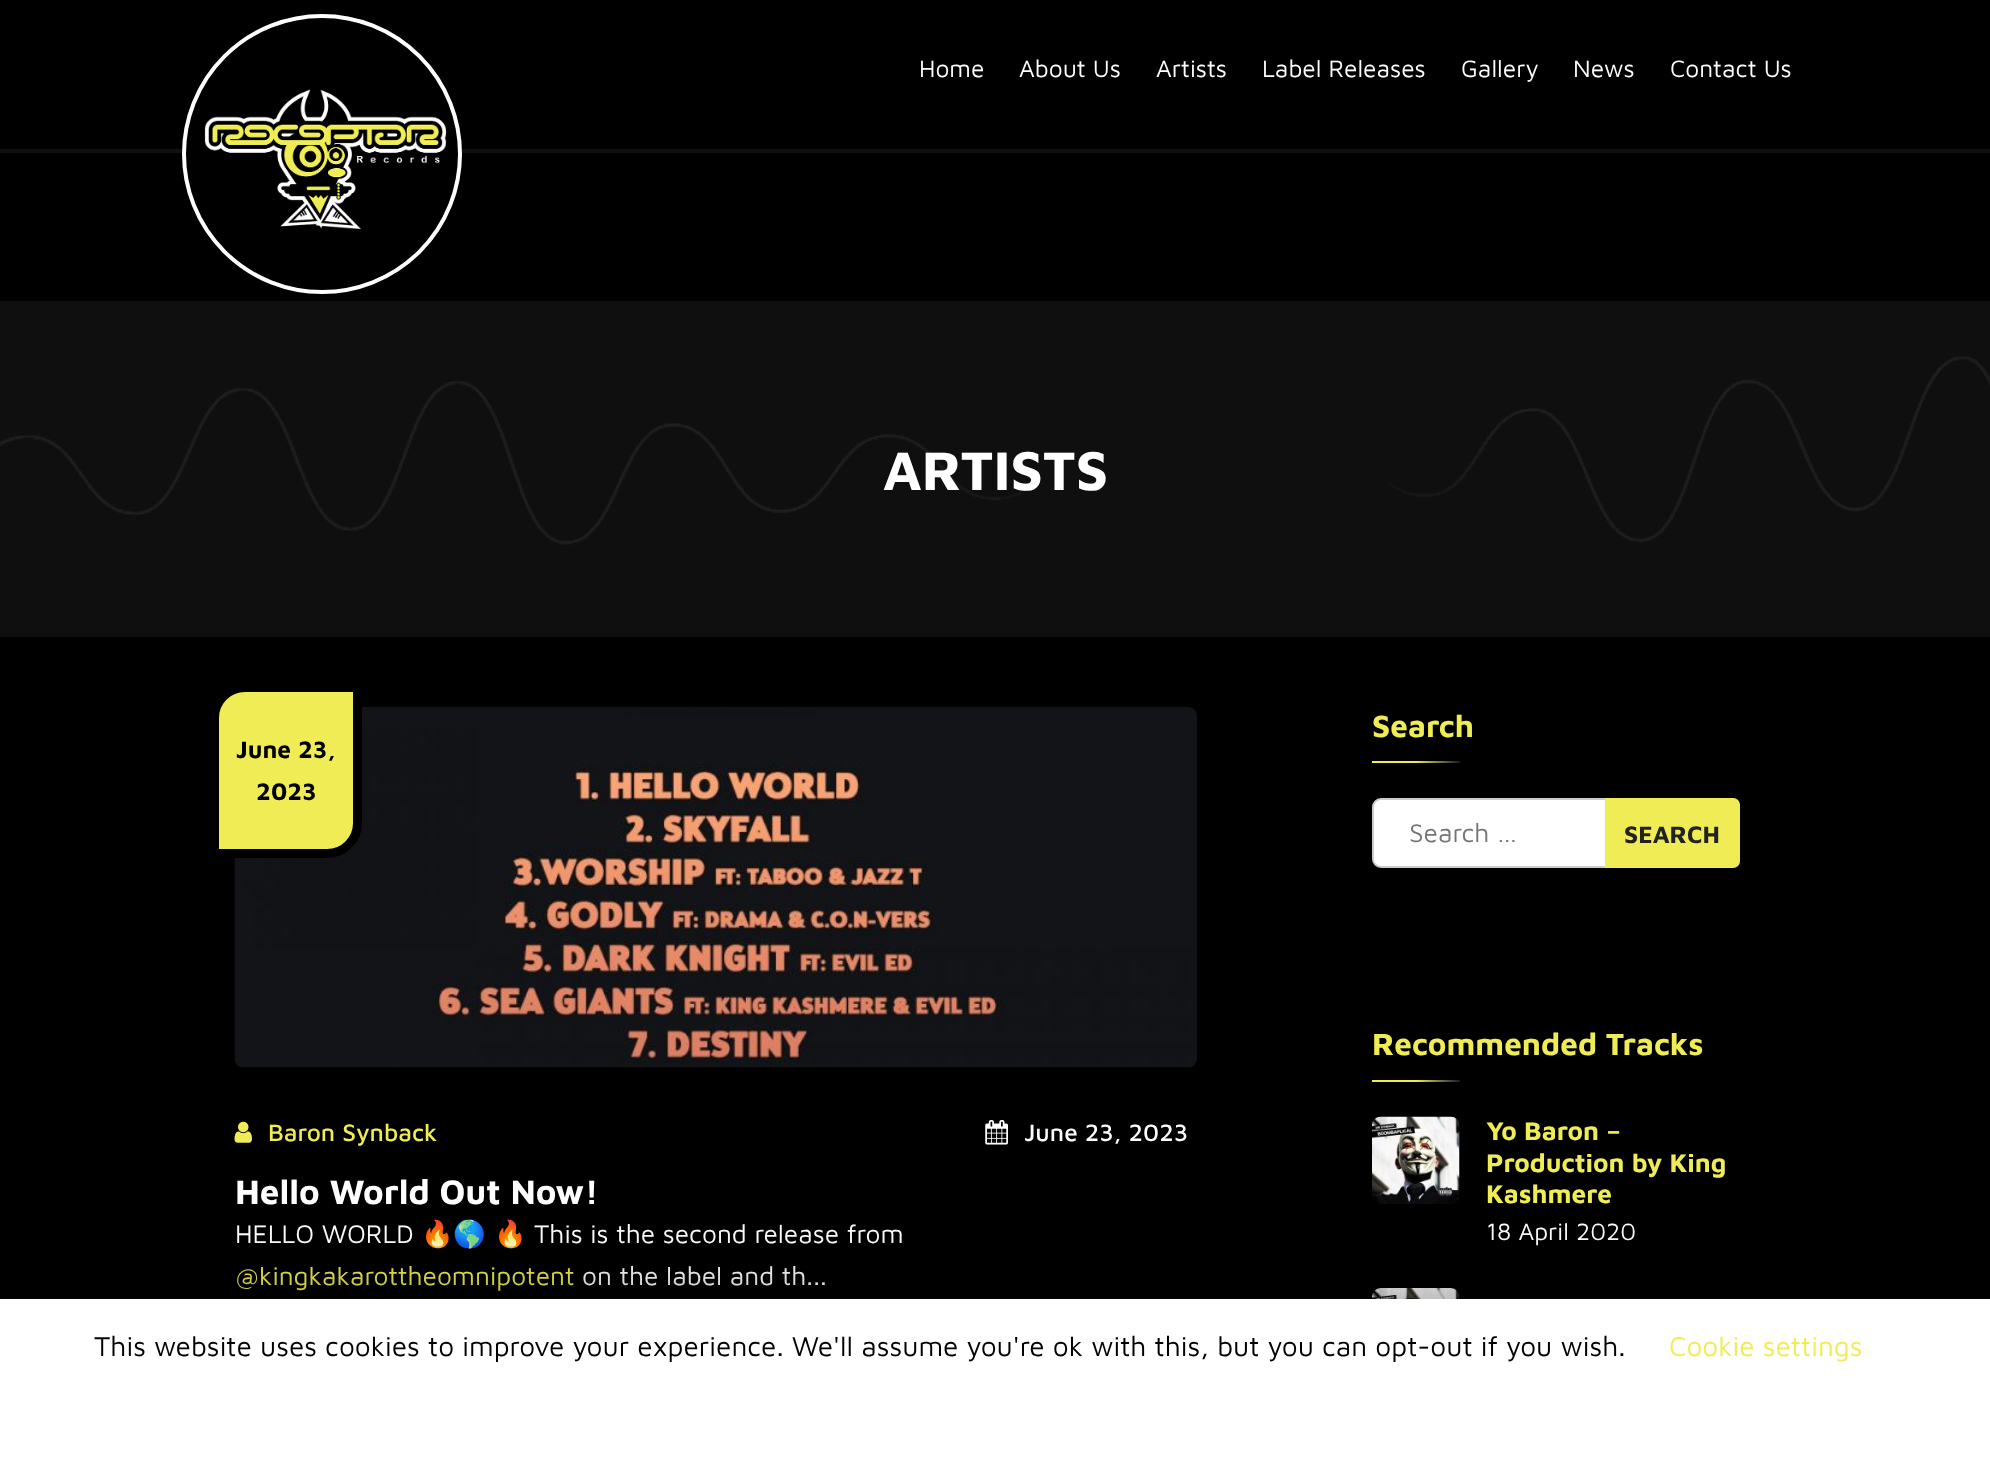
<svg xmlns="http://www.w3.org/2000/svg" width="1990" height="1466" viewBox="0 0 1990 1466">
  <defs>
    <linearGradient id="g1" gradientUnits="userSpaceOnUse" x1="1372" y1="762" x2="1460" y2="762"><stop offset="0" stop-color="#f0ec55"/><stop offset="0.5" stop-color="#f0ec55"/><stop offset="1" stop-color="#161a2d"/></linearGradient>
    <linearGradient id="g2" gradientUnits="userSpaceOnUse" x1="1372" y1="1081" x2="1460" y2="1081"><stop offset="0" stop-color="#f0ec55"/><stop offset="0.5" stop-color="#f0ec55"/><stop offset="1" stop-color="#161a2d"/></linearGradient>
    <filter id="blur1" x="-50%" y="-200%" width="200%" height="500%"><feGaussianBlur stdDeviation="44"/></filter>
  </defs>
  <rect width="100%" height="100%" fill="#000000"/>
  <rect x="0" y="149" width="1990" height="4" fill="#111111"/>
  <circle cx="322" cy="154" r="138" fill="#000000" stroke="#ffffff" stroke-width="4"/>
  <image x="204" y="89" width="243" height="140" href="img1.png"/>
  <text x="919" y="77" font-family="Maven Pro" font-size="24.5" fill="#ffffff">Home</text>
  <text x="1019" y="77" font-family="Maven Pro" font-size="24.5" fill="#ffffff">About Us</text>
  <text x="1156" y="77" font-family="Maven Pro" font-size="24.5" fill="#ffffff">Artists</text>
  <text x="1262" y="77" font-family="Maven Pro" font-size="24.5" fill="#ffffff">Label Releases</text>
  <text x="1461" y="77" font-family="Maven Pro" font-size="24.5" fill="#ffffff">Gallery</text>
  <text x="1573" y="77" font-family="Maven Pro" font-size="24.5" fill="#ffffff">News</text>
  <text x="1670" y="77" font-family="Maven Pro" font-size="24.5" fill="#ffffff">Contact Us</text>
  <rect x="0" y="301" width="1990" height="336" fill="#0f0f0f"/>
  <image x="0" y="356" width="1990" height="189" href="img2.png"/>
  <text x="883" y="490" font-family="Maven Pro" font-size="56" font-weight="bold" fill="#ffffff">ARTISTS</text>
  <image x="234" y="707" width="963" height="361" href="img3.png"/>
  <path d="M245 687.5H357.5V823C357.5 840 344 853.5 327 853.5H214.5V718C214.5 701 228 687.5 245 687.5Z" fill="#f0ec55" stroke="#000000" stroke-width="9"/>
  <text x="236" y="758" font-family="Maven Pro" font-size="24.5" font-weight="bold" fill="#000000">June 23,</text>
  <text x="256" y="800" font-family="Maven Pro" font-size="24.5" font-weight="bold" fill="#000000">2023</text>
  <image x="234" y="1121" width="18" height="22" href="img4.png"/>
  <text x="268" y="1141" font-family="Maven Pro" font-size="24.5" font-weight="500" fill="#f0ec55">Baron Synback</text>
  <image x="985" y="1120" width="23" height="25" href="img5.png"/>
  <text x="1024" y="1141" font-family="Maven Pro" font-size="24.5" font-weight="500" fill="#ffffff">June 23, 2023</text>
  <text x="235" y="1204" font-family="Maven Pro" font-size="35" font-weight="bold" fill="#ffffff">Hello World Out Now!</text>
  <text x="235" y="1243" font-family="Maven Pro" font-size="26.25" fill="#ffffff">HELLO WORLD</text>
  <text x="421" y="1243" font-family="Noto Color Emoji" font-size="26.25" fill="#ffffff">🔥🌎</text>
  <text x="494" y="1243" font-family="Noto Color Emoji" font-size="26.25" fill="#ffffff">🔥</text>
  <text x="534" y="1243" font-family="Maven Pro" font-size="26.25" fill="#ffffff">This is the second release from</text>
  <text x="235" y="1285" font-family="Maven Pro" font-size="26.25" fill="#f0ec55">@kingkakarottheomnipotent</text>
  <text x="582" y="1285" font-family="Maven Pro" font-size="26.25" fill="#ffffff">on the label and th...</text>
  <text x="1372" y="737" font-family="Maven Pro" font-size="31.5" font-weight="bold" fill="#f0ec55">Search</text>
  <rect x="1372" y="761" width="88" height="2" fill="url(#g1)"/>
  <rect x="1373" y="799" width="366" height="68" rx="8" fill="#ffffff" stroke="#cccccc" stroke-width="2"/>
  <text x="1409" y="842" font-family="Maven Pro" font-size="26.25" fill="#757575">Search …</text>
  <path d="M1606 799H1733C1736.5 799 1739 801.5 1739 805V861C1739 864.5 1736.5 867 1733 867H1606Z" fill="#f0ec55" stroke="#f0ec55" stroke-width="2"/>
  <text x="1624" y="843" font-family="Maven Pro" font-size="24.5" font-weight="bold" fill="#222222">SEARCH</text>
  <text x="1372" y="1055" font-family="Maven Pro" font-size="31.5" font-weight="bold" fill="#f0ec55">Recommended Tracks</text>
  <rect x="1372" y="1080" width="88" height="2" fill="url(#g2)"/>
  <image x="1372" y="1116" width="88" height="88" href="img6.png"/>
  <text x="1486" y="1140" font-family="Maven Pro" font-size="26.25" font-weight="bold" fill="#f0ec55">Yo Baron –</text>
  <text x="1486" y="1172" font-family="Maven Pro" font-size="26.25" font-weight="bold" fill="#f0ec55">Production by King</text>
  <text x="1486" y="1203" font-family="Maven Pro" font-size="26.25" font-weight="bold" fill="#f0ec55">Kashmere</text>
  <text x="1486" y="1240" font-family="Maven Pro" font-size="24.5" fill="#ffffff">18 April 2020</text>
  <image x="1372" y="1288" width="88" height="11" href="img7.png"/>
  <rect x="0" y="1307" width="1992" height="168" fill="#000000" fill-opacity="0.5" filter="url(#blur1)"/>
  <rect x="0" y="1299" width="1990" height="167" fill="#ffffff"/>
  <text x="94" y="1356" font-family="Maven Pro" font-size="28" fill="#000000">This website uses cookies to improve your experience. We'll assume you're ok with this, but you can opt-out if you wish.</text>
  <text x="1669" y="1356" font-family="Maven Pro" font-size="28" fill="#f0ec55">Cookie settings</text>
</svg>
